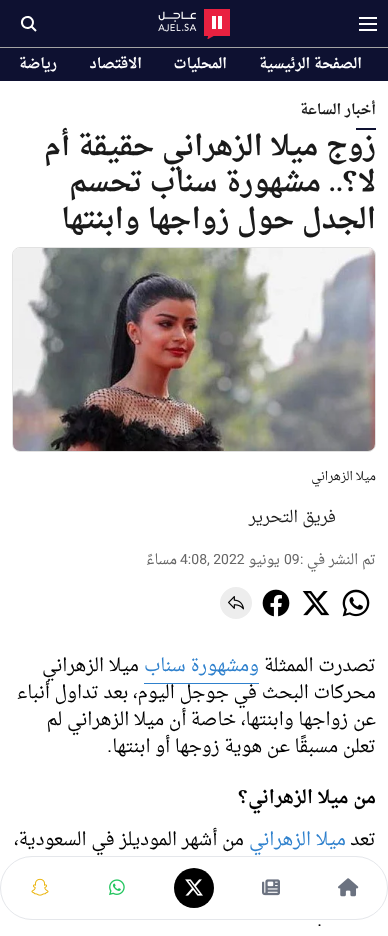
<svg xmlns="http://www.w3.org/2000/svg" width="388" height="936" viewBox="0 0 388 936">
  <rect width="100%" height="100%" fill="#ffffff"/>
  <rect x="0" y="0" width="388" height="47" fill="#0e1131"/>
  <rect x="0" y="47" width="388" height="1" fill="#a4a4a4"/>
  <image x="359" y="17" width="18" height="14" href="img1.png"/>
  <image x="158" y="9" width="72" height="30" href="img2.png"/>
  <image x="20" y="16" width="17" height="16" href="img3.png"/>
  <rect x="0" y="48" width="388" height="33" fill="#0e1131"/>
  <text x="362" y="68" font-family="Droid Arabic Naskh" font-size="14" font-weight="bold" direction="rtl" fill="#ffffff">الصفحة الرئيسية</text>
  <text x="227" y="68" font-family="Droid Arabic Naskh" font-size="14" font-weight="bold" direction="rtl" fill="#ffffff">المحليات</text>
  <text x="142" y="68" font-family="Droid Arabic Naskh" font-size="14" font-weight="bold" direction="rtl" fill="#ffffff">الاقتصاد</text>
  <text x="57" y="68" font-family="Droid Arabic Naskh" font-size="14" font-weight="bold" direction="rtl" fill="#ffffff">رياضة</text>
  <text x="376" y="114" font-family="Droid Arabic Naskh" font-size="14" font-weight="bold" direction="rtl" fill="#1a1a1a">أخبار الساعة</text>
  <rect x="356" y="128" width="20" height="2" fill="#0e1131"/>
  <text x="376" y="155" font-family="Droid Arabic Naskh" font-size="28" font-weight="bold" direction="rtl" fill="#1a1a1a">زوج ميلا الزهراني حقيقة أم</text>
  <text x="376" y="191" font-family="Droid Arabic Naskh" font-size="28" font-weight="bold" direction="rtl" fill="#1a1a1a">لا؟</text>
  <text x="343" y="191" font-family="Roboto" font-size="28" font-weight="bold" direction="rtl" fill="#1a1a1a">..</text>
  <text x="321" y="191" font-family="Droid Arabic Naskh" font-size="28" font-weight="bold" direction="rtl" fill="#1a1a1a">مشهورة سناب تحسم</text>
  <text x="376" y="228" font-family="Droid Arabic Naskh" font-size="28" font-weight="bold" direction="rtl" fill="#1a1a1a">الجدل حول زواجها وابنتها</text>
  <rect x="12.5" y="247.5" width="363" height="204" rx="7.5" fill="none" stroke="#e2e2e2"/>
  <image x="13" y="248" width="362" height="203" href="img4.png"/>
  <text x="376" y="480" font-family="Droid Arabic Naskh" font-size="12" direction="rtl" fill="#1a1a1a">ميلا الزهراني</text>
  <text x="336" y="522" font-family="Droid Arabic Naskh" font-size="16" direction="rtl" fill="#1a1a1a">فريق التحرير</text>
  <text x="376" y="564" font-family="Droid Arabic Naskh" font-size="14" direction="rtl" fill="#666666">تم النشر في</text>
  <text x="300" y="564" font-family="Roboto" font-size="14" fill="#666666">:</text>
  <text x="284" y="564" font-family="Roboto" font-size="14" fill="#666666">09</text>
  <text x="280" y="564" font-family="Droid Arabic Naskh" font-size="14" direction="rtl" fill="#666666">يونيو</text>
  <text x="180" y="564" font-family="Roboto" font-size="14" fill="#666666">4:08, 2022</text>
  <text x="177" y="564" font-family="Droid Arabic Naskh" font-size="14" direction="rtl" fill="#666666">مساءً</text>
  <image x="342" y="589" width="28" height="28" href="img5.png"/>
  <image x="302" y="591" width="28" height="25" href="img6.png"/>
  <image x="262" y="589" width="28" height="28" href="img7.png"/>
  <circle cx="236" cy="603" r="16" fill="#ededed"/>
  <image x="228" y="596" width="16" height="14" href="img8.png"/>
  <text x="376" y="671" font-family="Droid Arabic Naskh" font-size="18" direction="rtl" fill="#000000">تصدرت الممثلة</text>
  <text x="259" y="671" font-family="Droid Arabic Naskh" font-size="18" direction="rtl" fill="#2f81cd">ومشهورة سناب</text>
  <rect x="144" y="683" width="115" height="1" fill="#2f81cd"/>
  <text x="139" y="671" font-family="Droid Arabic Naskh" font-size="18" direction="rtl" fill="#000000">ميلا الزهراني</text>
  <text x="376" y="698" font-family="Droid Arabic Naskh" font-size="18" direction="rtl" fill="#000000">محركات البحث في جوجل اليوم، بعد تداول أنباء</text>
  <text x="376" y="725" font-family="Droid Arabic Naskh" font-size="18" direction="rtl" fill="#000000">عن زواجها وابنتها، خاصة أن ميلا الزهراني لم</text>
  <text x="376" y="752" font-family="Droid Arabic Naskh" font-size="18" direction="rtl" fill="#000000">تعلن مسبقًا عن هوية زوجها أو ابنتها</text>
  <text x="112" y="752" font-family="Roboto" font-size="18" direction="rtl" fill="#000000">.</text>
  <text x="376" y="803" font-family="Droid Arabic Naskh" font-size="18" font-weight="bold" direction="rtl" fill="#000000">من ميلا الزهراني؟</text>
  <text x="376" y="845" font-family="Droid Arabic Naskh" font-size="18" direction="rtl" fill="#000000">تعد</text>
  <text x="346" y="845" font-family="Droid Arabic Naskh" font-size="18" direction="rtl" fill="#2f81cd">ميلا الزهراني</text>
  <text x="244" y="845" font-family="Droid Arabic Naskh" font-size="18" direction="rtl" fill="#000000">من أشهر الموديلز في السعودية،</text>
  <text x="322" y="926" font-family="Roboto" font-size="18" direction="rtl" fill="#000000">.</text>
  <rect x="0.5" y="856.5" width="387" height="63" rx="31.5" fill="none" stroke="#e5e7eb"/>
  <image x="338" y="878" width="21" height="19" href="img9.png"/>
  <image x="262" y="879" width="18" height="17" href="img10.png"/>
  <circle cx="194" cy="888" r="20" fill="#000000"/>
  <image x="185" y="879" width="18" height="17" href="img11.png"/>
  <image x="109" y="879" width="16" height="17" href="img12.png"/>
  <image x="31" y="878" width="18" height="18" href="img13.png"/>
</svg>
